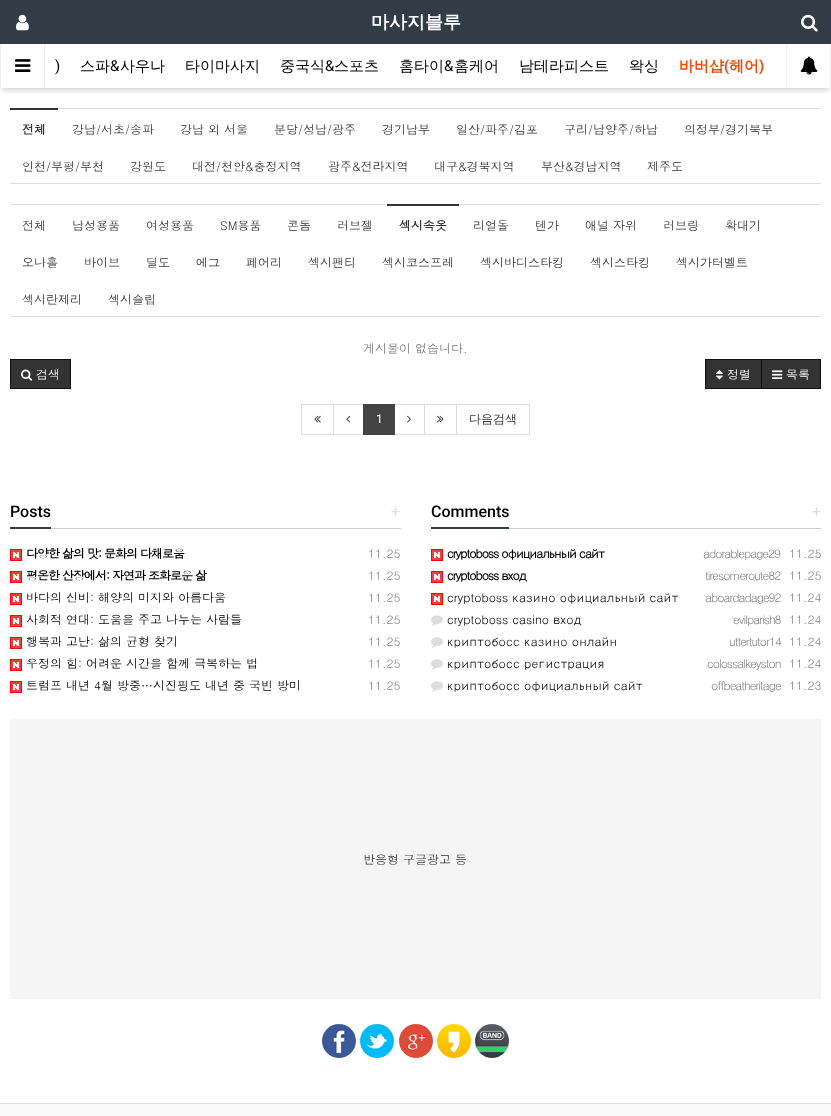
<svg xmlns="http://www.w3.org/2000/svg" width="831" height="1116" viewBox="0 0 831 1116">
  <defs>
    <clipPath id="clip1"><rect x="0" y="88" width="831" height="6"/></clipPath>
    <filter id="blur1" x="-50%" y="-200%" width="200%" height="500%"><feGaussianBlur stdDeviation="2.5"/></filter>
  </defs>
  <rect width="100%" height="100%" fill="#ffffff"/>
  <rect x="0" y="0" width="831" height="44" fill="#323c46"/>
  <image x="16" y="14" width="13" height="17" href="img1.png"/>
  <text x="371" y="28" font-family="WenQuanYi Zen Hei" font-size="18" font-weight="bold" fill="#ffffff">마사지블루</text>
  <image x="801" y="14" width="17" height="18" href="img2.png"/>
  <g clip-path="url(#clip1)">
    <rect x="2" y="51" width="827" height="40" fill="#191919" fill-opacity="0.15" filter="url(#blur1)"/>
  </g>
  <rect x="0" y="44" width="1" height="44" fill="#eeeeee"/>
  <image x="15" y="59" width="16" height="13" href="img3.png"/>
  <rect x="44" y="44" width="1" height="44" fill="#eeeeee"/>
  <text x="55" y="71" font-family="Roboto" font-size="15" fill="#000000">)</text>
  <text x="80" y="71" font-family="WenQuanYi Zen Hei" font-size="15" font-weight="500" fill="#000000">스파</text>
  <text x="110" y="71" font-family="Roboto" font-size="15" fill="#000000">&amp;</text>
  <text x="120" y="71" font-family="WenQuanYi Zen Hei" font-size="15" font-weight="500" fill="#000000">사우나</text>
  <text x="185" y="71" font-family="WenQuanYi Zen Hei" font-size="15" font-weight="500" fill="#000000">타이마사지</text>
  <text x="280" y="71" font-family="WenQuanYi Zen Hei" font-size="15" font-weight="500" fill="#000000">중국식</text>
  <text x="325" y="71" font-family="Roboto" font-size="15" fill="#000000">&amp;</text>
  <text x="334" y="71" font-family="WenQuanYi Zen Hei" font-size="15" font-weight="500" fill="#000000">스포츠</text>
  <text x="399" y="71" font-family="WenQuanYi Zen Hei" font-size="15" font-weight="500" fill="#000000">홈타이</text>
  <text x="444" y="71" font-family="Roboto" font-size="15" fill="#000000">&amp;</text>
  <text x="454" y="71" font-family="WenQuanYi Zen Hei" font-size="15" font-weight="500" fill="#000000">홈케어</text>
  <text x="519" y="71" font-family="WenQuanYi Zen Hei" font-size="15" font-weight="500" fill="#000000">남테라피스트</text>
  <text x="629" y="71" font-family="WenQuanYi Zen Hei" font-size="15" font-weight="500" fill="#000000">왁싱</text>
  <text x="679" y="71" font-family="WenQuanYi Zen Hei" font-size="15" font-weight="bold" fill="#ff4500">바버샵</text>
  <text x="724" y="71" font-family="Roboto" font-size="15" font-weight="bold" fill="#ff4500">(</text>
  <text x="729" y="71" font-family="WenQuanYi Zen Hei" font-size="15" font-weight="bold" fill="#ff4500">헤어</text>
  <text x="759" y="71" font-family="Roboto" font-size="15" font-weight="bold" fill="#ff4500">)</text>
  <rect x="830" y="44" width="1" height="44" fill="#eeeeee"/>
  <rect x="786" y="44" width="1" height="44" fill="#eeeeee"/>
  <image x="800" y="56" width="18" height="19" href="img4.png"/>
  <rect x="58" y="108" width="763" height="1" fill="#dddddd"/>
  <rect x="10" y="183" width="811" height="1" fill="#dddddd"/>
  <rect x="10" y="108" width="48" height="2" fill="#333333"/>
  <text x="22" y="134" font-family="Dotum" font-size="12" font-weight="bold" fill="#333333">전체</text>
  <text x="72" y="134" font-family="Dotum" font-size="12" fill="#333333">강남/서초/송파</text>
  <text x="180" y="134" font-family="Dotum" font-size="12" fill="#333333">강남 외 서울</text>
  <text x="274" y="134" font-family="Dotum" font-size="12" fill="#333333">분당/성남/광주</text>
  <text x="382" y="134" font-family="Dotum" font-size="12" fill="#333333">경기남부</text>
  <text x="456" y="134" font-family="Dotum" font-size="12" fill="#333333">일산/파주/김포</text>
  <text x="564" y="134" font-family="Dotum" font-size="12" fill="#333333">구리/남양주/하남</text>
  <text x="684" y="134" font-family="Dotum" font-size="12" fill="#333333">의정부/경기북부</text>
  <text x="22" y="171" font-family="Dotum" font-size="12" fill="#333333">인천/부평/부천</text>
  <text x="130" y="171" font-family="Dotum" font-size="12" fill="#333333">강원도</text>
  <text x="192" y="171" font-family="Dotum" font-size="12" fill="#333333">대전/천안&amp;충정지역</text>
  <text x="328" y="171" font-family="Dotum" font-size="12" fill="#333333">광주&amp;전라지역</text>
  <text x="434" y="171" font-family="Dotum" font-size="12" fill="#333333">대구&amp;경북지역</text>
  <text x="541" y="171" font-family="Dotum" font-size="12" fill="#333333">부산&amp;경남지역</text>
  <text x="647" y="171" font-family="Dotum" font-size="12" fill="#333333">제주도</text>
  <rect x="10" y="204" width="811" height="1" fill="#dddddd"/>
  <rect x="10" y="316" width="811" height="1" fill="#dddddd"/>
  <text x="22" y="230" font-family="Dotum" font-size="12" fill="#333333">전체</text>
  <text x="72" y="230" font-family="Dotum" font-size="12" fill="#333333">남성용품</text>
  <text x="146" y="230" font-family="Dotum" font-size="12" fill="#333333">여성용품</text>
  <text x="220" y="230" font-family="Dotum" font-size="12" fill="#333333">SM용품</text>
  <text x="287" y="230" font-family="Dotum" font-size="12" fill="#333333">콘돔</text>
  <text x="337" y="230" font-family="Dotum" font-size="12" fill="#333333">러브젤</text>
  <rect x="387" y="204" width="72" height="2" fill="#333333"/>
  <text x="399" y="230" font-family="Dotum" font-size="12" font-weight="bold" fill="#333333">섹시속옷</text>
  <text x="473" y="230" font-family="Dotum" font-size="12" fill="#333333">리얼돌</text>
  <text x="535" y="230" font-family="Dotum" font-size="12" fill="#333333">텐가</text>
  <text x="585" y="230" font-family="Dotum" font-size="12" fill="#333333">애널 자위</text>
  <text x="663" y="230" font-family="Dotum" font-size="12" fill="#333333">러브링</text>
  <text x="725" y="230" font-family="Dotum" font-size="12" fill="#333333">확대기</text>
  <text x="22" y="267" font-family="Dotum" font-size="12" fill="#333333">오나홀</text>
  <text x="84" y="267" font-family="Dotum" font-size="12" fill="#333333">바이브</text>
  <text x="146" y="267" font-family="Dotum" font-size="12" fill="#333333">딜도</text>
  <text x="196" y="267" font-family="Dotum" font-size="12" fill="#333333">에그</text>
  <text x="246" y="267" font-family="Dotum" font-size="12" fill="#333333">페어리</text>
  <text x="308" y="267" font-family="Dotum" font-size="12" fill="#333333">섹시팬티</text>
  <text x="382" y="267" font-family="Dotum" font-size="12" fill="#333333">섹시코스프레</text>
  <text x="480" y="267" font-family="Dotum" font-size="12" fill="#333333">섹시바디스타킹</text>
  <text x="590" y="267" font-family="Dotum" font-size="12" fill="#333333">섹시스타킹</text>
  <text x="676" y="267" font-family="Dotum" font-size="12" fill="#333333">섹시가터벨트</text>
  <text x="22" y="304" font-family="Dotum" font-size="12" fill="#333333">섹시란제리</text>
  <text x="108" y="304" font-family="Dotum" font-size="12" fill="#333333">섹시슬립</text>
  <text x="363" y="353" font-family="Dotum" font-size="12" fill="#777777">게시물이 없습니다.</text>
  <rect x="10.5" y="359.5" width="60" height="29" fill="#333333" stroke="#111111"/>
  <image x="21" y="369" width="12" height="12" href="img5.png"/>
  <text x="36" y="379" font-family="Dotum" font-size="12" fill="#ffffff">검색</text>
  <rect x="705.5" y="359.5" width="56" height="29" fill="#333333" stroke="#111111"/>
  <image x="716" y="370" width="7" height="10" href="img6.png"/>
  <text x="727" y="379" font-family="Dotum" font-size="12" fill="#ffffff">정렬</text>
  <rect x="761.5" y="359.5" width="59" height="29" fill="#333333" stroke="#111111"/>
  <image x="772" y="370" width="11" height="9" href="img7.png"/>
  <text x="786" y="379" font-family="Dotum" font-size="12" fill="#ffffff">목록</text>
  <rect x="301.5" y="404.5" width="32" height="30" fill="none" stroke="#dddddd"/>
  <image x="314" y="415" width="7" height="8" href="img8.png"/>
  <rect x="333.5" y="404.5" width="30" height="30" fill="none" stroke="#dddddd"/>
  <image x="346" y="415" width="5" height="8" href="img9.png"/>
  <rect x="394.5" y="404.5" width="30" height="30" fill="none" stroke="#dddddd"/>
  <rect x="363" y="404" width="32" height="31" fill="#444444"/>
  <text x="376" y="423" font-family="Roboto" font-size="12" fill="#ffffff">1</text>
  <image x="407" y="415" width="4" height="8" href="img10.png"/>
  <rect x="424.5" y="404.5" width="32" height="30" fill="none" stroke="#dddddd"/>
  <image x="437" y="415" width="7" height="8" href="img11.png"/>
  <rect x="456.5" y="404.5" width="73" height="30" fill="none" stroke="#dddddd"/>
  <text x="469" y="423" font-family="WenQuanYi Zen Hei" font-size="12" font-weight="500" fill="#333333">다음검색</text>
  <rect x="51" y="528" width="350" height="1" fill="#cccccc"/>
  <rect x="10" y="527" width="41" height="2" fill="#323c46"/>
  <text x="10" y="517" font-family="Roboto" font-size="16" font-weight="500" fill="#000000">Posts</text>
  <text x="391" y="517" font-family="Roboto" font-size="16" fill="#dddddd">+</text>
  <image x="10" y="549" width="12" height="12" href="img12.png"/>
  <text x="26" y="558" font-family="Dotum" font-size="12" font-weight="bold" letter-spacing="-1" fill="#000000">다양한 삶의 맛: 문화의 다채로움</text>
  <text x="368" y="558" font-family="Dotum" font-size="12" fill="#888888">11.25</text>
  <image x="10" y="571" width="12" height="12" href="img12.png"/>
  <text x="26" y="580" font-family="Dotum" font-size="12" font-weight="bold" letter-spacing="-1" fill="#000000">평온한 산장에서: 자연과 조화로운 삶</text>
  <text x="368" y="580" font-family="Dotum" font-size="12" fill="#888888">11.25</text>
  <image x="10" y="593" width="12" height="12" href="img12.png"/>
  <text x="26" y="602" font-family="Dotum" font-size="12" fill="#000000">바다의 신비: 해양의 미지와 아름다움</text>
  <text x="368" y="602" font-family="Dotum" font-size="12" fill="#888888">11.25</text>
  <image x="10" y="615" width="12" height="12" href="img12.png"/>
  <text x="26" y="624" font-family="Dotum" font-size="12" fill="#000000">사회적 연대: 도움을 주고 나누는 사람들</text>
  <text x="368" y="624" font-family="Dotum" font-size="12" fill="#888888">11.25</text>
  <image x="10" y="637" width="12" height="12" href="img12.png"/>
  <text x="26" y="646" font-family="Dotum" font-size="12" fill="#000000">행복과 고난: 삶의 균형 찾기</text>
  <text x="368" y="646" font-family="Dotum" font-size="12" fill="#888888">11.25</text>
  <image x="10" y="659" width="12" height="12" href="img12.png"/>
  <text x="26" y="668" font-family="Dotum" font-size="12" fill="#000000">우정의 힘: 어려운 시간을 함께 극복하는 법</text>
  <text x="368" y="668" font-family="Dotum" font-size="12" fill="#888888">11.25</text>
  <image x="10" y="681" width="12" height="12" href="img12.png"/>
  <text x="26" y="690" font-family="Dotum" font-size="12" fill="#000000">트럼프 내년 4월 방중…시진핑도 내년 중 국빈 방미</text>
  <text x="368" y="690" font-family="Dotum" font-size="12" fill="#888888">11.25</text>
  <rect x="509" y="528" width="312" height="1" fill="#cccccc"/>
  <rect x="431" y="527" width="78" height="2" fill="#323c46"/>
  <text x="431" y="517" font-family="Roboto" font-size="16" font-weight="500" fill="#000000">Comments</text>
  <text x="812" y="517" font-family="Roboto" font-size="16" fill="#dddddd">+</text>
  <image x="431" y="549" width="12" height="12" href="img12.png"/>
  <text x="447" y="558" font-family="Dotum" font-size="12" font-weight="bold" letter-spacing="-1" fill="#000000">cryptoboss официальный сайт</text>
  <text x="703" y="558" font-family="Dotum" font-size="12" letter-spacing="-1" fill="#888888">adorablepage29</text>
  <text x="789" y="558" font-family="Dotum" font-size="12" fill="#888888">11.25</text>
  <image x="431" y="571" width="12" height="12" href="img12.png"/>
  <text x="447" y="580" font-family="Dotum" font-size="12" font-weight="bold" letter-spacing="-1" fill="#000000">cryptoboss вход</text>
  <text x="705" y="580" font-family="Dotum" font-size="12" letter-spacing="-1" fill="#888888">tiresomeroute82</text>
  <text x="789" y="580" font-family="Dotum" font-size="12" fill="#888888">11.25</text>
  <image x="431" y="593" width="12" height="12" href="img12.png"/>
  <text x="447" y="602" font-family="Dotum" font-size="12" fill="#000000">cryptoboss казино официальный сайт</text>
  <text x="705" y="602" font-family="Dotum" font-size="12" letter-spacing="-1" fill="#888888">aboardadage92</text>
  <text x="789" y="602" font-family="Dotum" font-size="12" fill="#888888">11.24</text>
  <image x="431" y="615" width="12" height="11" href="img13.png"/>
  <text x="447" y="624" font-family="Dotum" font-size="12" fill="#000000">cryptoboss casino вход</text>
  <text x="733" y="624" font-family="Dotum" font-size="12" letter-spacing="-1" fill="#888888">evilparish8</text>
  <text x="789" y="624" font-family="Dotum" font-size="12" fill="#888888">11.24</text>
  <image x="431" y="637" width="12" height="11" href="img13.png"/>
  <text x="447" y="646" font-family="Dotum" font-size="12" fill="#000000">криптобосс казино онлайн</text>
  <text x="729" y="646" font-family="Dotum" font-size="12" letter-spacing="-1" fill="#888888">uttertutor14</text>
  <text x="789" y="646" font-family="Dotum" font-size="12" fill="#888888">11.24</text>
  <image x="431" y="659" width="12" height="11" href="img13.png"/>
  <text x="447" y="668" font-family="Dotum" font-size="12" fill="#000000">криптобосс регистрация</text>
  <text x="707" y="668" font-family="Dotum" font-size="12" letter-spacing="-1" fill="#888888">colossalkeyston</text>
  <text x="789" y="668" font-family="Dotum" font-size="12" fill="#888888">11.24</text>
  <image x="431" y="681" width="12" height="11" href="img13.png"/>
  <text x="447" y="690" font-family="Dotum" font-size="12" fill="#000000">криптобосс официальный сайт</text>
  <text x="711" y="690" font-family="Dotum" font-size="12" letter-spacing="-1" fill="#888888">offbeatheritage</text>
  <text x="789" y="690" font-family="Dotum" font-size="12" fill="#888888">11.23</text>
  <rect x="10" y="719" width="811" height="280" fill="#f5f5f5"/>
  <text x="363" y="864" font-family="Dotum" font-size="12" fill="#333333">반응형 구글광고 등</text>
  <image x="322" y="1024" width="34" height="34" href="img14.png"/>
  <image x="360" y="1024" width="34" height="34" href="img15.png"/>
  <image x="399" y="1024" width="34" height="34" href="img16.png"/>
  <image x="437" y="1024" width="34" height="34" href="img17.png"/>
  <image x="475" y="1024" width="34" height="34" href="img18.png"/>
  <rect x="0" y="1104" width="831" height="12" fill="#fafafa"/>
  <rect x="0" y="1103" width="831" height="1" fill="#dddddd"/>
</svg>
